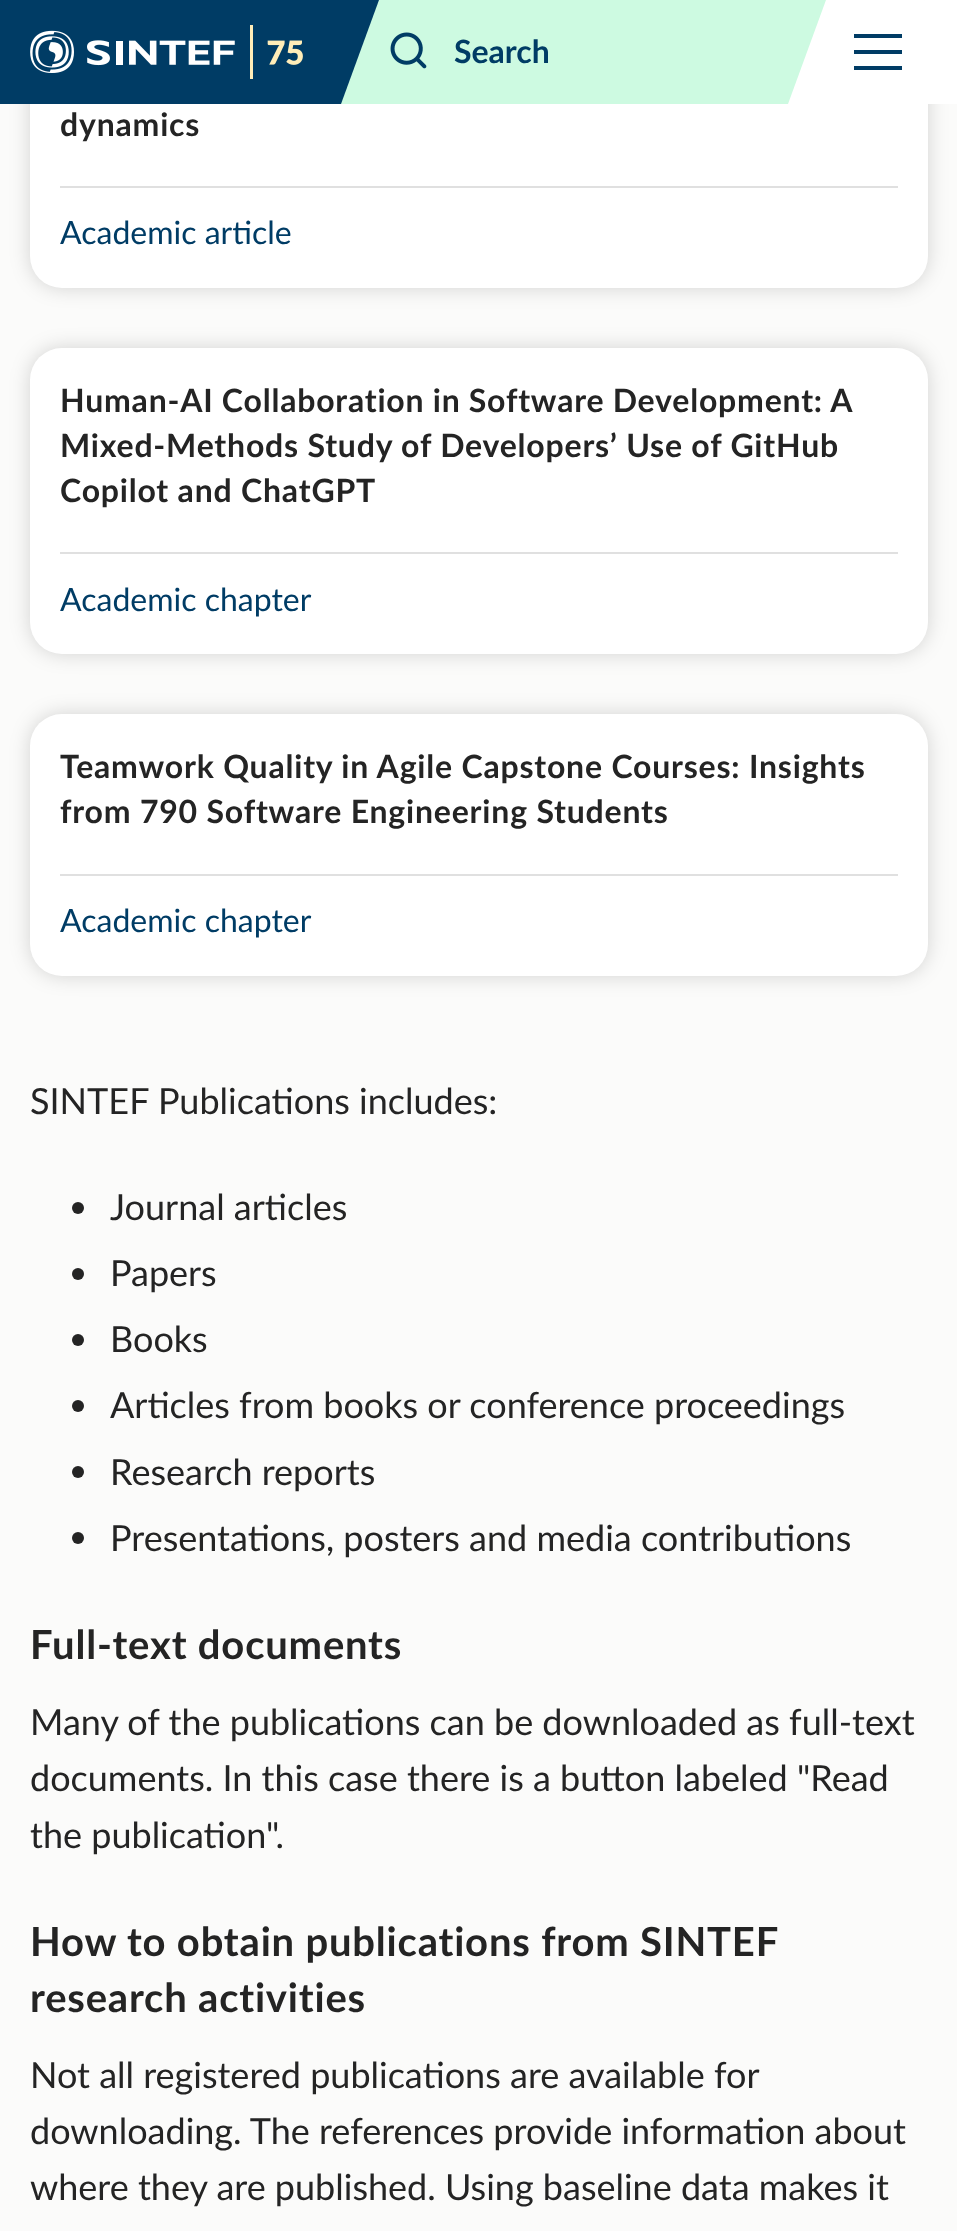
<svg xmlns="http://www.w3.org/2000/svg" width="957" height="2231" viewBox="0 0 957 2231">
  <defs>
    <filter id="blur1" x="-50%" y="-200%" width="200%" height="500%"><feGaussianBlur stdDeviation="10"/></filter>
  </defs>
  <rect width="100%" height="100%" fill="#fbfbfa"/>
  <rect x="30" y="-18" width="898" height="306" rx="32" fill="#000000" fill-opacity="0.16" filter="url(#blur1)"/>
  <rect x="30" y="-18" width="898" height="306" rx="32" fill="#ffffff"/>
  <path d="M364 0H826L788 104H326Z" fill="#cdfae1"/>
  <path d="M53 0H379L341 104H15Z" fill="#003c65"/>
  <rect x="0" y="0" width="53" height="104" fill="#003c65"/>
  <image x="30" y="25" width="273" height="54" href="img1.png"/>
  <image x="390" y="32" width="37" height="37" href="img2.png"/>
  <text x="454" y="63" font-family="Lato" font-size="32" font-weight="bold" fill="#003c65">Search</text>
  <rect x="854" y="34" width="48" height="4" fill="#003c65"/>
  <rect x="854" y="50" width="48" height="4" fill="#003c65"/>
  <rect x="854" y="66" width="48" height="4" fill="#003c65"/>
  <rect x="925" y="0" width="32" height="104" fill="#ffffff"/>
  <text x="60" y="136" font-family="Lato" font-size="32" font-weight="bold" letter-spacing="0.8" fill="#242424">dynamics</text>
  <rect x="60" y="186" width="838" height="2" fill="#e0e0e0"/>
  <text x="60" y="244" font-family="Lato" font-size="32" fill="#003c65">Academic article</text>
  <rect x="30" y="348" width="898" height="306" rx="32" fill="#000000" fill-opacity="0.16" filter="url(#blur1)"/>
  <rect x="30" y="348" width="898" height="306" rx="32" fill="#ffffff"/>
  <text x="60" y="412" word-spacing="-0.25" font-family="Lato" font-size="32" font-weight="bold" letter-spacing="0.8" fill="#242424">Human-AI Collaboration in Software Development: A</text>
  <text x="60" y="457" font-family="Lato" font-size="32" font-weight="bold" letter-spacing="0.8" fill="#242424">Mixed-Methods Study of Developers’ Use of GitHub</text>
  <text x="60" y="502" font-family="Lato" font-size="32" font-weight="bold" letter-spacing="0.8" fill="#242424">Copilot and ChatGPT</text>
  <rect x="60" y="552" width="838" height="2" fill="#e0e0e0"/>
  <text x="60" y="611" font-family="Lato" font-size="32" fill="#003c65">Academic chapter</text>
  <rect x="30" y="714" width="898" height="262" rx="32" fill="#000000" fill-opacity="0.16" filter="url(#blur1)"/>
  <rect x="30" y="714" width="898" height="262" rx="32" fill="#ffffff"/>
  <text x="60" y="778" font-family="Lato" font-size="32" font-weight="bold" letter-spacing="0.8" fill="#242424">Teamwork Quality in Agile Capstone Courses: Insights</text>
  <text x="60" y="823" font-family="Lato" font-size="32" font-weight="bold" letter-spacing="0.8" fill="#242424">from 790 Software Engineering Students</text>
  <rect x="60" y="874" width="838" height="2" fill="#e0e0e0"/>
  <text x="60" y="932" font-family="Lato" font-size="32" fill="#003c65">Academic chapter</text>
  <text x="30" y="1114" font-family="Lato" font-size="36" fill="#242424">SINTEF Publications includes:</text>
  <circle cx="78" cy="1208" r="6" fill="#242424"/>
  <text x="110" y="1220" font-family="Lato" font-size="36" fill="#242424">Journal articles</text>
  <circle cx="78" cy="1274" r="6" fill="#242424"/>
  <text x="110" y="1286" font-family="Lato" font-size="36" fill="#242424">Papers</text>
  <circle cx="78" cy="1340" r="6" fill="#242424"/>
  <text x="110" y="1352" font-family="Lato" font-size="36" fill="#242424">Books</text>
  <circle cx="78" cy="1406" r="6" fill="#242424"/>
  <text x="110" y="1418" font-family="Lato" font-size="36" fill="#242424">Articles from books or conference proceedings</text>
  <circle cx="78" cy="1472" r="6" fill="#242424"/>
  <text x="110" y="1485" font-family="Lato" font-size="36" fill="#242424">Research reports</text>
  <circle cx="78" cy="1538" r="6" fill="#242424"/>
  <text x="110" y="1551" font-family="Lato" font-size="36" fill="#242424">Presentations, posters and media contributions</text>
  <text x="30" y="1659" font-family="Lato" font-size="40" font-weight="bold" letter-spacing="0.8" fill="#242424">Full-text documents</text>
  <text x="30" y="1735" font-family="Lato" font-size="36" fill="#242424">Many of the publications can be downloaded as full-text</text>
  <text x="30" y="1791" font-family="Lato" font-size="36" fill="#242424">documents. In this case there is a button labeled "Read</text>
  <text x="30" y="1848" font-family="Lato" font-size="36" fill="#242424">the publication".</text>
  <text x="30" y="1956" font-family="Lato" font-size="40" font-weight="bold" letter-spacing="0.8" fill="#242424">How to obtain publications from SINTEF</text>
  <text x="30" y="2012" font-family="Lato" font-size="40" font-weight="bold" letter-spacing="0.8" fill="#242424">research activities</text>
  <text x="30" y="2088" font-family="Lato" font-size="36" fill="#242424">Not all registered publications are available for</text>
  <text x="30" y="2144" font-family="Lato" font-size="36" fill="#242424">downloading. The references provide information about</text>
  <text x="30" y="2200" font-family="Lato" font-size="36" fill="#242424">where they are published. Using baseline data makes it</text>
</svg>
